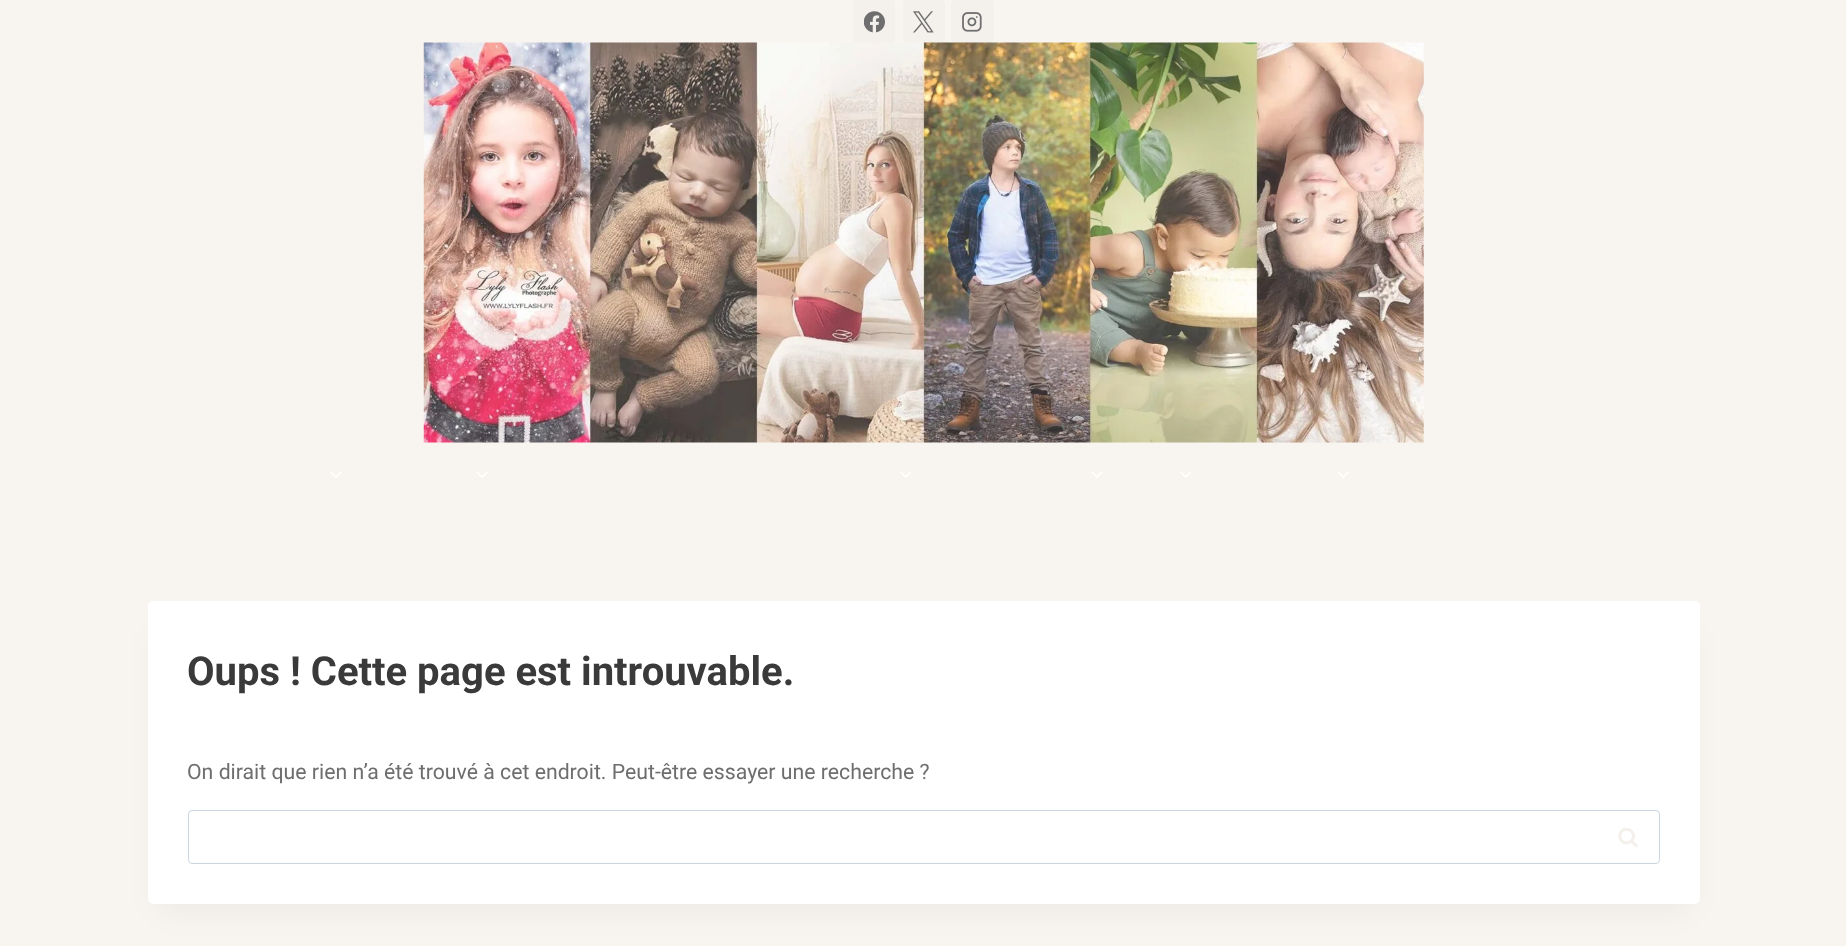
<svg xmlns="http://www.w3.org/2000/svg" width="1846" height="946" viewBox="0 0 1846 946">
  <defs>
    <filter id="blur1" x="-50%" y="-200%" width="200%" height="500%"><feGaussianBlur stdDeviation="15.5"/></filter>
  </defs>
  <rect width="100%" height="100%" fill="#f8f4ef"/>
  <rect x="853" y="0" width="42" height="43" rx="4" fill="#f4f1ed"/>
  <image x="864" y="11" width="21" height="22" href="img1.png"/>
  <rect x="903" y="0" width="42" height="43" rx="4" fill="#f4f1ed"/>
  <image x="913" y="11" width="21" height="22" href="img2.png"/>
  <rect x="951" y="0" width="43" height="43" rx="4" fill="#f4f1ed"/>
  <image x="962" y="12" width="20" height="20" href="img3.png"/>
  <image x="423" y="42" width="1001" height="401" href="img4.png"/>
  <image x="330" y="471" width="12" height="7" href="img5.png"/>
  <image x="476" y="471" width="12" height="7" href="img6.png"/>
  <image x="900" y="471" width="12" height="7" href="img5.png"/>
  <image x="1091" y="471" width="12" height="7" href="img6.png"/>
  <image x="1180" y="471" width="12" height="7" href="img5.png"/>
  <image x="1338" y="471" width="11" height="7" href="img7.png"/>
  <rect x="160" y="633" width="1528" height="277" fill="#000000" fill-opacity="0.05" filter="url(#blur1)"/>
  <rect x="148" y="601" width="1552" height="303" rx="5" fill="#ffffff"/>
  <text x="187" y="685" font-family="Roboto" font-size="40" font-weight="bold" fill="#3a3a3a">Oups ! Cette page est introuvable.</text>
  <text x="187" y="779" font-family="Roboto" font-size="21.25" fill="#6e6e6e">On dirait que rien n’a été trouvé à cet endroit. Peut-être essayer une recherche ?</text>
  <rect x="188.5" y="810.5" width="1471" height="53" rx="3.5" fill="none" stroke="#cbd5e0"/>
  <image x="1618" y="828" width="20" height="20" href="img8.png"/>
</svg>
